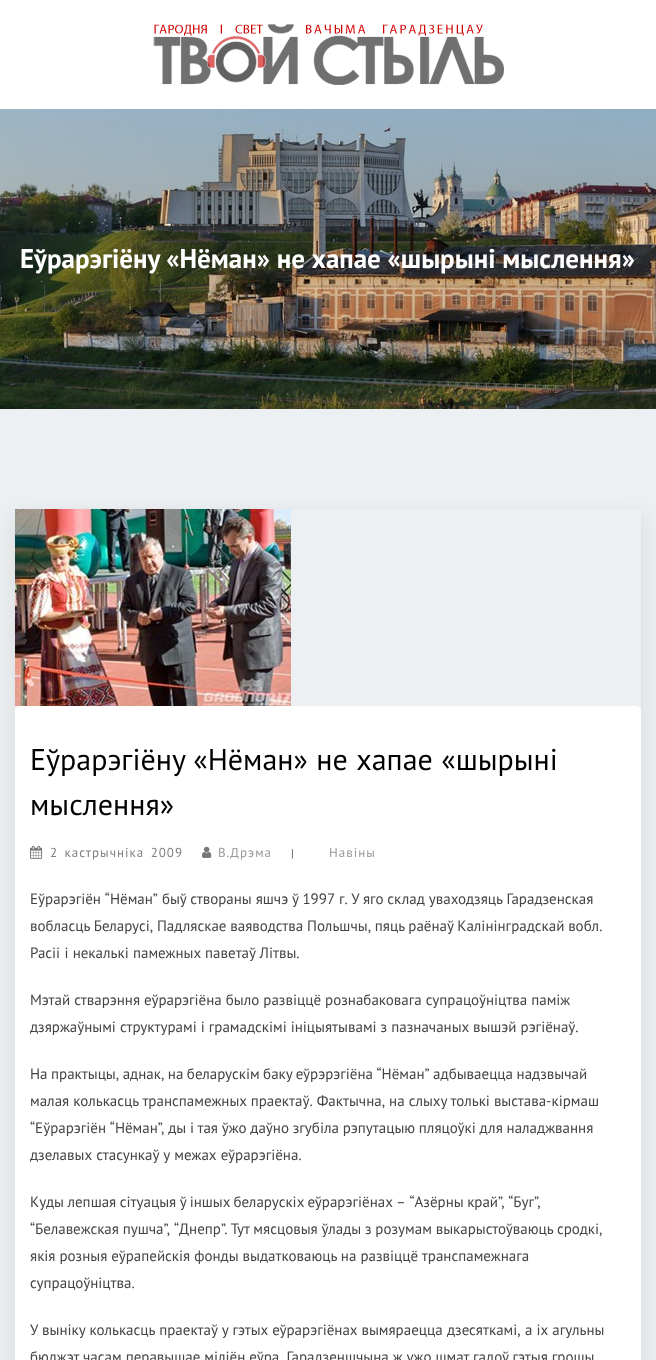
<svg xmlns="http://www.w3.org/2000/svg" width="656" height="1360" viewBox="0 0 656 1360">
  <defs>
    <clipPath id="clip1"><path d="M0 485H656V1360H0ZM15 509H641V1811H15Z" clip-rule="evenodd"/></clipPath>
    <filter id="blur1" x="-50%" y="-200%" width="200%" height="500%"><feGaussianBlur stdDeviation="10"/></filter>
  </defs>
  <rect width="100%" height="100%" fill="#edf0f2"/>
  <rect x="0" y="0" width="656" height="109" fill="#ffffff"/>
  <image x="153" y="24" width="351" height="61" href="img1.png"/>
  <image x="0" y="109" width="656" height="300" href="img2.png"/>
  <text x="20" y="268" font-family="PT Sans" font-size="27" font-weight="bold" fill="#ffffff">Еўрарэгіёну «Нёман» не хапае «шырыні мыслення»</text>
  <g clip-path="url(#clip1)">
    <rect x="15" y="516" width="626" height="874" fill="#000000" fill-opacity="0.1" filter="url(#blur1)"/>
  </g>
  <image x="15" y="509" width="276" height="197" href="img3.png"/>
  <rect x="15" y="706" width="626" height="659" rx="5" fill="#ffffff"/>
  <text x="30" y="770" word-spacing="0.5" font-family="PT Sans" font-size="30" fill="#000000">Еўрарэгіёну «Нёман» не хапае «шырыні</text>
  <text x="30" y="815" font-family="PT Sans" font-size="30" fill="#000000">мыслення»</text>
  <image x="30" y="845" width="13" height="14" href="img4.png"/>
  <text x="50" y="857" word-spacing="2" font-family="PT Sans" font-size="13" letter-spacing="1" fill="#808080">2 кастрычніка 2009</text>
  <image x="202" y="846" width="10" height="12" href="img5.png"/>
  <text x="218" y="857" font-family="PT Sans" font-size="13" letter-spacing="1" fill="#999999">В.Дрэма</text>
  <text x="291" y="857" font-family="PT Sans" font-size="11" fill="#444444">|</text>
  <text x="329" y="857" font-family="PT Sans" font-size="13" letter-spacing="1" fill="#999999">Навіны</text>
  <text x="30" y="904" word-spacing="-0.1" font-family="PT Sans" font-size="15" fill="#444444">Еўрарэгіён “Нёман” быў створаны яшчэ ў 1997 г. У яго склад уваходзяць Гарадзенская</text>
  <text x="30" y="931" word-spacing="-0.25" font-family="PT Sans" font-size="15" fill="#444444">вобласць Беларусі, Падляскае ваяводства Польшчы, пяць раёнаў Калінінградскай вобл.</text>
  <text x="30" y="958" word-spacing="0.25" font-family="PT Sans" font-size="15" fill="#444444">Расіі і некалькі памежных паветаў Літвы.</text>
  <text x="30" y="1005" font-family="PT Sans" font-size="15" fill="#444444">Мэтай стварэння еўрарэгіёна было развіццё рознабаковага супрацоўніцтва паміж</text>
  <text x="30" y="1032" font-family="PT Sans" font-size="15" fill="#444444">дзяржаўнымі структурамі і грамадскімі ініцыятывамі з пазначаных вышэй рэгіёнаў.</text>
  <text x="30" y="1079" word-spacing="-0.5" font-family="PT Sans" font-size="15" fill="#444444">На практыцы, аднак, на беларускім баку еўрэрэгіёна “Нёман” адбываецца надзвычай</text>
  <text x="30" y="1106" font-family="PT Sans" font-size="15" fill="#444444">малая колькасць транспамежных праектаў. Фактычна, на слыху толькі выстава-кірмаш</text>
  <text x="30" y="1133" word-spacing="-0.25" font-family="PT Sans" font-size="15" fill="#444444">“Еўрарэгіён “Нёман”, ды і тая ўжо даўно згубіла рэпутацыю пляцоўкі для наладжвання</text>
  <text x="30" y="1160" word-spacing="0.5" font-family="PT Sans" font-size="15" fill="#444444">дзелавых стасункаў у межах еўрарэгіёна.</text>
  <text x="30" y="1207" word-spacing="-0.5" font-family="PT Sans" font-size="15" fill="#444444">Куды лепшая сітуацыя ў іншых беларускіх еўрарэгіёнах – “Азёрны край”, “Буг”,</text>
  <text x="30" y="1234" word-spacing="-0.25" font-family="PT Sans" font-size="15" fill="#444444">“Белавежская пушча”, “Днепр”. Тут мясцовыя ўлады з розумам выкарыстоўваюць сродкі,</text>
  <text x="30" y="1261" font-family="PT Sans" font-size="15" fill="#444444">якія розныя еўрапейскія фонды выдатковаюць на развіццё транспамежнага</text>
  <text x="30" y="1288" font-family="PT Sans" font-size="15" fill="#444444">супрацоўніцтва.</text>
  <text x="30" y="1335" word-spacing="0.25" font-family="PT Sans" font-size="15" fill="#444444">У выніку колькасць праектаў у гэтых еўрарэгіёнах вымяраецца дзесяткамі, а іх агульны</text>
  <text x="30" y="1362" font-family="PT Sans" font-size="15" fill="#444444">бюджэт часам перавышае міліён еўра. Гарадзеншчына ж ужо шмат гадоў гэтыя грошы</text>
</svg>
